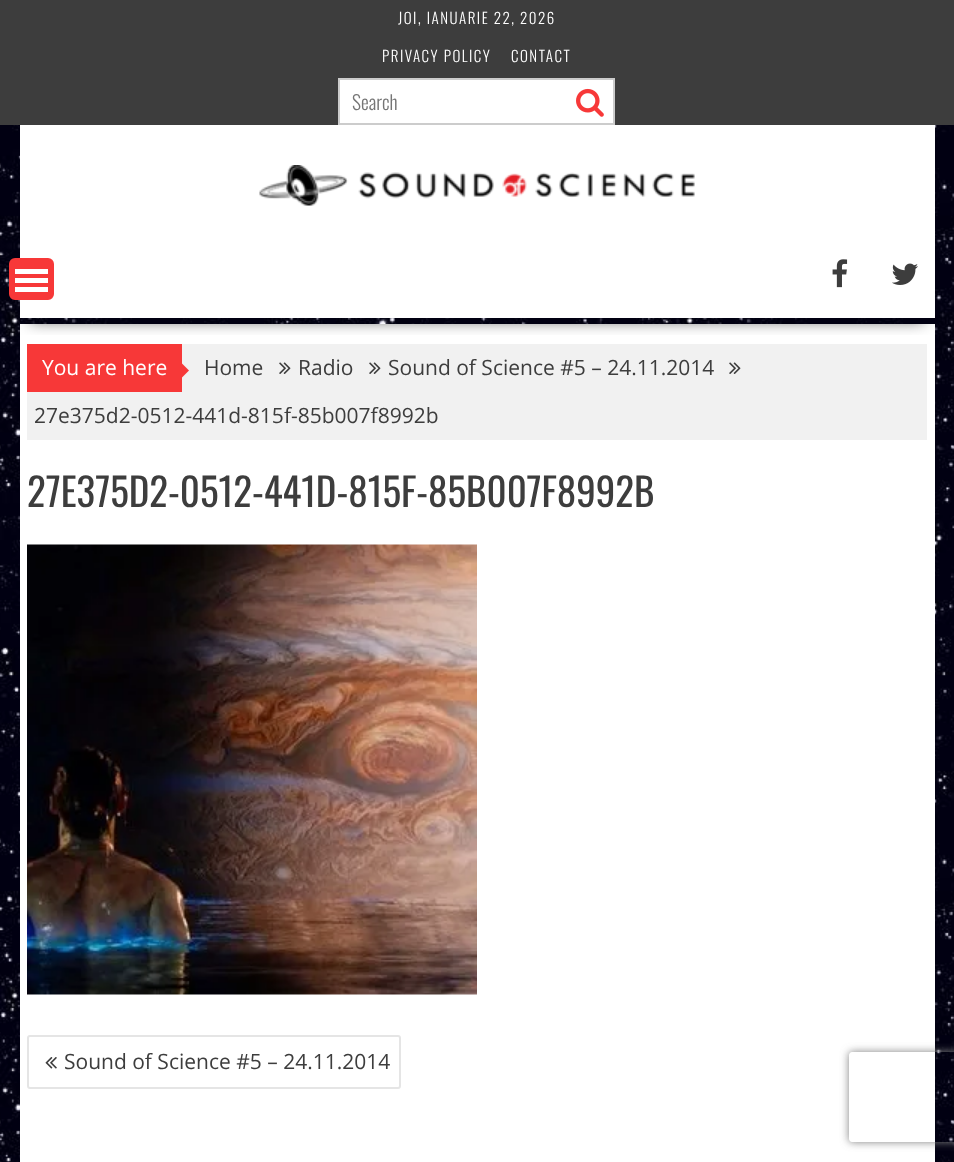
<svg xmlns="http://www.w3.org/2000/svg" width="954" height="1162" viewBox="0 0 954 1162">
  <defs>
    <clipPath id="clip1"><rect x="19" y="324" width="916" height="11"/></clipPath>
    <filter id="blur1" x="-50%" y="-200%" width="200%" height="500%"><feGaussianBlur stdDeviation="8"/></filter>
    <clipPath id="clip2"><path d="M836 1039H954V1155H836ZM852 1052H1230C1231.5 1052 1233 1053.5 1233 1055V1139C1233 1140.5 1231.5 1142 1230 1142H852C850.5 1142 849 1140.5 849 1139V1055C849 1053.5 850.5 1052 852 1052Z" clip-rule="evenodd"/></clipPath>
    <filter id="blur2" x="-50%" y="-200%" width="200%" height="500%"><feGaussianBlur stdDeviation="4"/></filter>
  </defs>
  <rect width="100%" height="100%" fill="#ffffff"/>
  <image x="0" y="125" width="954" height="1037" href="img1.png"/>
  <rect x="0" y="0" width="954" height="125" fill="#3d3d3d"/>
  <text x="398" y="24" font-family="Oswald" font-size="15" font-weight="300" letter-spacing="1.5" fill="#ffffff">JOI, IANUARIE 22, 2026</text>
  <text x="382" y="62" font-family="Oswald" font-size="15" font-weight="300" letter-spacing="1.5" fill="#ffffff">PRIVACY POLICY</text>
  <text x="511" y="62" font-family="Oswald" font-size="15" font-weight="300" letter-spacing="1.5" fill="#ffffff">CONTACT</text>
  <rect x="339" y="79" width="275" height="45" fill="#ffffff" stroke="#cccccc" stroke-width="2"/>
  <text x="352" y="110" font-family="Oswald" font-size="19.5" font-weight="300" fill="#757575">Search</text>
  <image x="576" y="88" width="28" height="29" href="img2.png"/>
  <rect x="20" y="125" width="915" height="121" fill="#ffffff"/>
  <image x="259" y="165" width="436" height="41" href="img3.png"/>
  <rect x="20" y="324" width="915" height="838" fill="#ffffff"/>
  <rect x="27" y="344" width="900" height="96" fill="#f1f1f1"/>
  <g clip-path="url(#clip1)">
    <rect x="30" y="302" width="894" height="18" fill="#000000" fill-opacity="0.75" filter="url(#blur1)"/>
  </g>
  <rect x="20" y="246" width="915" height="72" fill="#ffffff"/>
  <image x="832" y="259" width="16" height="29" href="img4.png"/>
  <image x="892" y="263" width="26" height="22" href="img5.png"/>
  <rect x="10" y="259" width="43" height="40" rx="5" fill="#f73838" stroke="#f73838" stroke-width="2"/>
  <rect x="15" y="287" width="33" height="5" fill="#ffffff"/>
  <rect x="15" y="278" width="33" height="5" fill="#ffffff"/>
  <rect x="15" y="269" width="33" height="5" fill="#ffffff"/>
  <text x="204" y="375" font-family="Open Sans" font-size="21" fill="#3d3d3d">Home</text>
  <image x="279" y="362" width="12" height="12" href="img6.png"/>
  <text x="298" y="375" font-family="Open Sans" font-size="21" fill="#3d3d3d">Radio</text>
  <image x="369" y="362" width="12" height="12" href="img6.png"/>
  <text x="388" y="375" font-family="Open Sans" font-size="21" fill="#3d3d3d">Sound of Science #5 – 24.11.2014</text>
  <image x="729" y="362" width="12" height="12" href="img6.png"/>
  <text x="34" y="423" font-family="Open Sans" font-size="21" fill="#3d3d3d">27e375d2-0512-441d-815f-85b007f8992b</text>
  <rect x="27" y="344" width="155" height="48" fill="#f73838"/>
  <text x="42" y="375" font-family="Open Sans" font-size="21" fill="#ffffff">You are here</text>
  <path d="M181.5 378V363L189 370.5Z" fill="#f73838"/>
  <text x="27" y="507" font-family="Oswald" font-size="39" fill="#3d3d3d">27E375D2-0512-441D-815F-85B007F8992B</text>
  <image x="27" y="544" width="450" height="451" href="img7.png"/>
  <rect x="28" y="1036" width="372" height="52" rx="2" fill="none" stroke="#e5e5e5" stroke-width="2"/>
  <image x="45" y="1057" width="12" height="12" href="img8.png"/>
  <text x="64" y="1069" font-family="Open Sans" font-size="21" fill="#3d3d3d">Sound of Science #5 – 24.11.2014</text>
  <g clip-path="url(#clip2)">
    <rect x="849" y="1052" width="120" height="90" rx="3" fill="#808080" filter="url(#blur2)"/>
  </g>
</svg>
